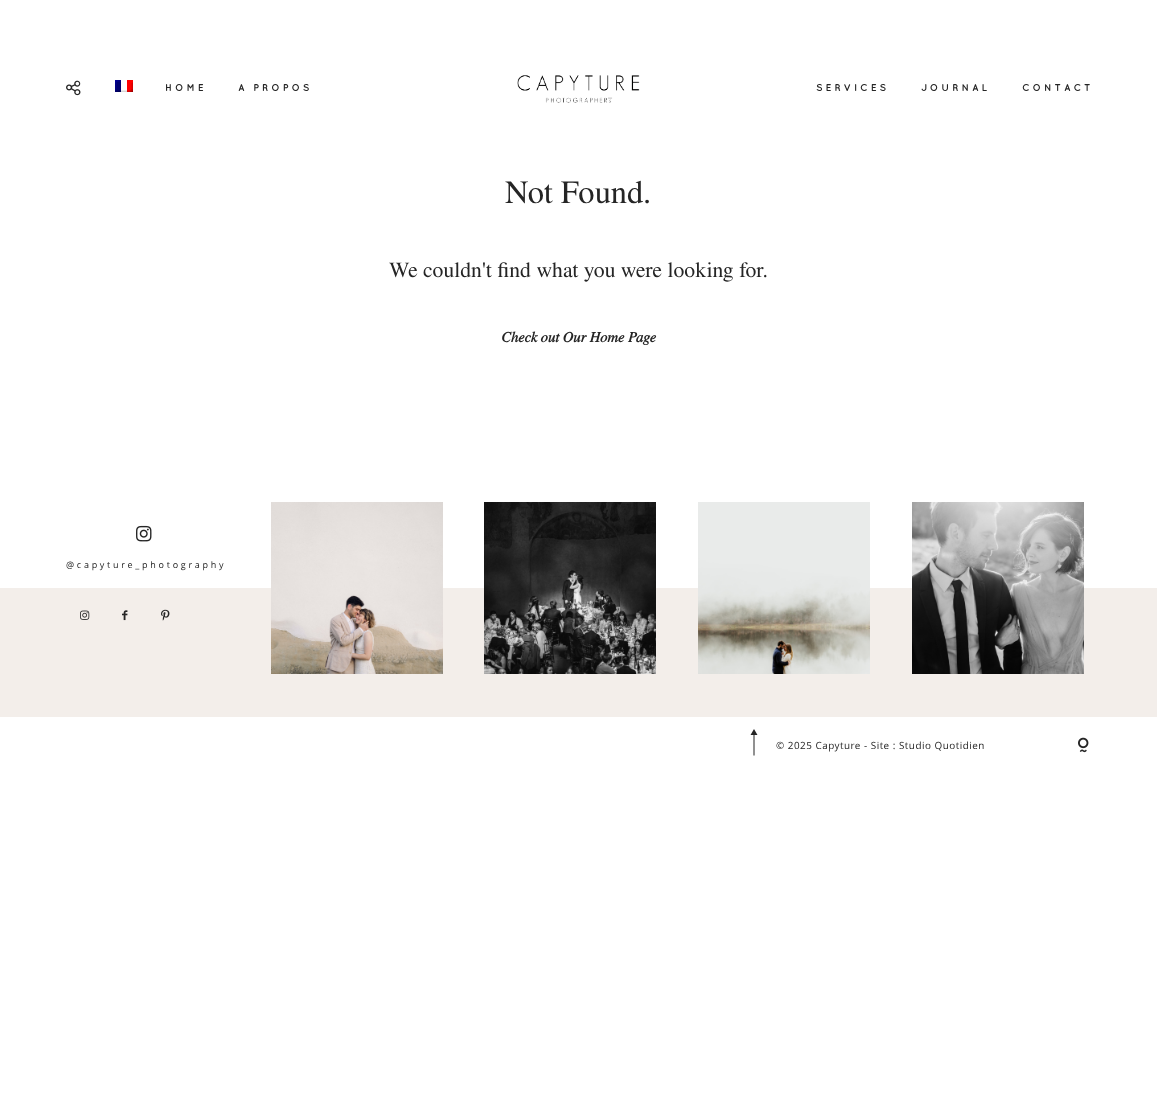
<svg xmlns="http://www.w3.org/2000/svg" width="1157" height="1101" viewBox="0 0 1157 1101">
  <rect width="100%" height="100%" fill="#ffffff"/>
  <image x="66" y="80" width="15" height="16" href="img1.png"/>
  <image x="115" y="80" width="18" height="12" href="img2.png"/>
  <text x="165" y="91" font-family="Quicksand" font-size="9.9" font-weight="bold" letter-spacing="3" fill="#252525">HOME</text>
  <text x="238" y="91" font-family="Quicksand" font-size="9.9" font-weight="bold" letter-spacing="3" fill="#252525">A PROPOS</text>
  <image x="517" y="75" width="123" height="28" href="img3.png"/>
  <text x="816" y="91" font-family="Quicksand" font-size="9.9" font-weight="bold" letter-spacing="3" fill="#252525">SERVICES</text>
  <text x="921" y="91" font-family="Quicksand" font-size="9.9" font-weight="bold" letter-spacing="3" fill="#252525">JOURNAL</text>
  <text x="1022" y="91" font-family="Quicksand" font-size="9.9" font-weight="bold" letter-spacing="3" fill="#252525">CONTACT</text>
  <text x="505" y="203" font-family="'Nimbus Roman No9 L'" font-size="32.5" fill="#252525">Not Found.</text>
  <text x="389" y="277" font-family="'Nimbus Roman No9 L'" font-size="21.7" fill="#252525">We couldn't find what you were looking for.</text>
  <text x="501" y="342" font-family="'Nimbus Roman No9 L'" font-size="14.5" font-weight="bold" font-style="italic" fill="#252525">Check out Our Home Page</text>
  <image x="136" y="525" width="16" height="17" href="img4.png"/>
  <text x="66" y="568" font-family="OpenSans" font-size="9" letter-spacing="2.75" fill="#252525">@capyture_photography</text>
  <rect x="0" y="588" width="1157" height="129" fill="#f3eeea"/>
  <image x="80" y="610" width="10" height="10" href="img5.png"/>
  <image x="122" y="610" width="6" height="11" href="img6.png"/>
  <image x="161" y="609" width="9" height="12" href="img7.png"/>
  <image x="271" y="502" width="172" height="172" href="img8.png"/>
  <image x="484" y="502" width="172" height="172" href="img9.png"/>
  <image x="698" y="502" width="172" height="172" href="img10.png"/>
  <image x="912" y="502" width="172" height="172" href="img11.png"/>
  <path d="M753.5 755.5V735H750.5L754 729L757.5 735H754.5V755.5Z" fill="#252525"/>
  <text x="776" y="749" font-family="OpenSans" font-size="9.9" letter-spacing="0.5" fill="#252525">© 2025 Capyture - Site : Studio Quotidien</text>
  <image x="1078" y="737" width="11" height="16" href="img12.png"/>
</svg>
